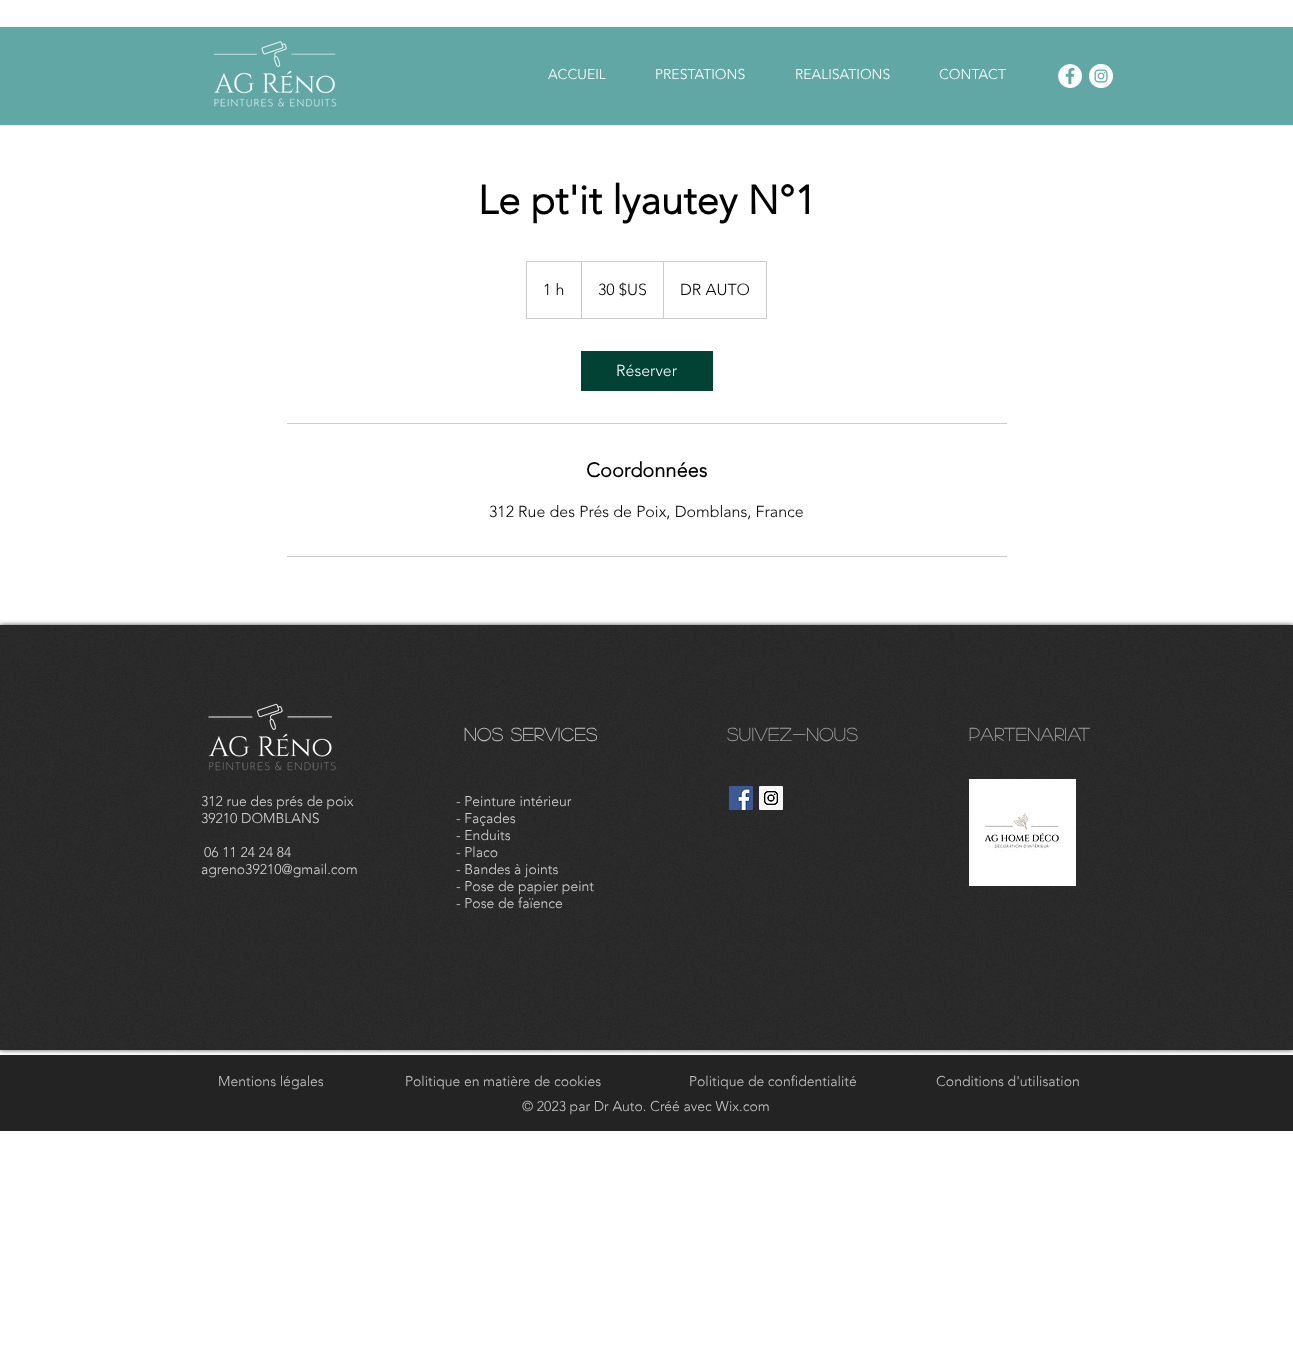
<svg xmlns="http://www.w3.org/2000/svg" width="1293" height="1372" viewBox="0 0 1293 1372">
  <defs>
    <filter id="blur1" x="-50%" y="-200%" width="200%" height="500%"><feGaussianBlur stdDeviation="2.5"/></filter>
  </defs>
  <rect width="100%" height="100%" fill="#ffffff"/>
  <rect x="0" y="27" width="1293" height="98" fill="#60a7a6"/>
  <image x="213" y="41" width="124" height="66" href="img1.png"/>
  <text x="548" y="79" font-family="'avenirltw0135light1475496'" font-size="14" font-weight="300" fill="#ffffff">ACCUEIL</text>
  <text x="655" y="79" font-family="'avenirltw0135light1475496'" font-size="14" font-weight="300" fill="#ffffff">PRESTATIONS</text>
  <text x="795" y="79" font-family="'avenirltw0135light1475496'" font-size="14" font-weight="300" fill="#ffffff">REALISATIONS</text>
  <text x="939" y="79" font-family="'avenirltw0135light1475496'" font-size="14" font-weight="300" fill="#ffffff">CONTACT</text>
  <image x="1058" y="64" width="24" height="24" href="img2.png"/>
  <image x="1089" y="64" width="24" height="24" href="img3.png"/>
  <text x="478" y="214" font-family="'avenirltw0135light1475496'" font-size="40" font-weight="bold" fill="#000000">Le pt'it lyautey N°1</text>
  <rect x="526.5" y="261.5" width="240" height="57" fill="none" stroke="#cccccc"/>
  <text x="543" y="295" font-family="'avenirltw0135light1475496'" font-size="16" font-weight="300" fill="#000000">1 h</text>
  <path d="M581 318V261L582 262V318Z" fill="#cccccc"/>
  <text x="598" y="295" font-family="'avenirltw0135light1475496'" font-size="16" font-weight="300" fill="#000000">30 $US</text>
  <path d="M663 318V261L664 262V318Z" fill="#cccccc"/>
  <text x="680" y="295" font-family="'avenirltw0135light1475496'" font-size="16" font-weight="300" fill="#000000">DR AUTO</text>
  <rect x="581" y="351" width="132" height="40" fill="#014235"/>
  <text x="616" y="376" font-family="'avenirltw0135light1475496'" font-size="16" font-weight="300" fill="#ffffff">Réserver</text>
  <rect x="287" y="423" width="720" height="1" fill="#cccccc"/>
  <text x="586" y="477" font-family="'avenirltw0135light1475496'" font-size="20" font-weight="bold" fill="#000000">Coordonnées</text>
  <text x="489" y="517" font-family="'avenirltw0135light1475496'" font-size="16" font-weight="300" fill="#000000">312 Rue des Prés de Poix, Domblans, France</text>
  <rect x="287" y="556" width="720" height="1" fill="#cccccc"/>
  <rect x="0" y="625" width="1293" height="425" fill="#000000" fill-opacity="0.7" filter="url(#blur1)"/>
  <rect x="0" y="625" width="1293" height="425" fill="#292929"/>
  <image x="0" y="625" width="1293" height="425" href="img4.png"/>
  <image x="208" y="703" width="128" height="68" href="img5.png"/>
  <text x="464" y="741" font-family="'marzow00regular'" font-size="18" font-weight="bold" letter-spacing="0.9" fill="#c7c7c7">NOS SERVICES</text>
  <text x="727" y="741" font-family="'marzow00regular'" font-size="18" font-weight="bold" letter-spacing="0.9" fill="#a0a09f">SUIVEZ-NOUS</text>
  <text x="969" y="741" font-family="'marzow00regular'" font-size="18" font-weight="bold" letter-spacing="0.9" fill="#a0a09f">PARTENARIAT</text>
  <text x="201" y="806" font-family="'avenirltw0135light1475496'" font-size="14" font-weight="300" fill="#d4d4d4">312 rue des prés de poix</text>
  <text x="201" y="823" font-family="'avenirltw0135light1475496'" font-size="14" font-weight="300" fill="#d4d4d4">39210 DOMBLANS</text>
  <text x="204" y="857" font-family="'avenirltw0135light1475496'" font-size="14" font-weight="300" fill="#d4d4d4">06 11 24 24 84</text>
  <text x="201" y="874" font-family="'avenirltw0135light1475496'" font-size="14" font-weight="300" fill="#d4d4d4">agreno39210@gmail.com</text>
  <text x="456" y="806" font-family="'avenirltw0135light1475496'" font-size="14" font-weight="300" fill="#d4d4d4">- Peinture intérieur</text>
  <text x="456" y="823" font-family="'avenirltw0135light1475496'" font-size="14" font-weight="300" fill="#d4d4d4">- Façades</text>
  <text x="456" y="840" font-family="'avenirltw0135light1475496'" font-size="14" font-weight="300" fill="#d4d4d4">- Enduits</text>
  <text x="456" y="857" font-family="'avenirltw0135light1475496'" font-size="14" font-weight="300" fill="#d4d4d4">- Placo</text>
  <text x="456" y="874" font-family="'avenirltw0135light1475496'" font-size="14" font-weight="300" fill="#d4d4d4">- Bandes à joints</text>
  <text x="456" y="891" font-family="'avenirltw0135light1475496'" font-size="14" font-weight="300" fill="#d4d4d4">- Pose de papier peint</text>
  <text x="456" y="908" font-family="'avenirltw0135light1475496'" font-size="14" font-weight="300" fill="#d4d4d4">- Pose de faïence</text>
  <image x="729" y="786" width="24" height="24" href="img6.png"/>
  <image x="759" y="786" width="24" height="24" href="img7.png"/>
  <image x="969" y="779" width="107" height="107" href="img8.png"/>
  <rect x="0" y="1055" width="1293" height="76" fill="#242323"/>
  <text x="218" y="1086" font-family="'avenirltw0135light1475496'" font-size="14" font-weight="300" fill="#c7c7c7">Mentions légales</text>
  <text x="405" y="1086" font-family="'avenirltw0135light1475496'" font-size="14" font-weight="300" fill="#c7c7c7">Politique en matière de cookies</text>
  <text x="689" y="1086" font-family="'avenirltw0135light1475496'" font-size="14" font-weight="300" fill="#c7c7c7">Politique de confidentialité</text>
  <text x="936" y="1086" font-family="'avenirltw0135light1475496'" font-size="14" font-weight="300" fill="#c7c7c7">Conditions d'utilisation</text>
  <text x="522" y="1111" font-family="'avenirltw0135light1475496'" font-size="14" font-weight="300" fill="#c7c7c7">© 2023 par Dr Auto. Créé avec Wix.com</text>
</svg>
